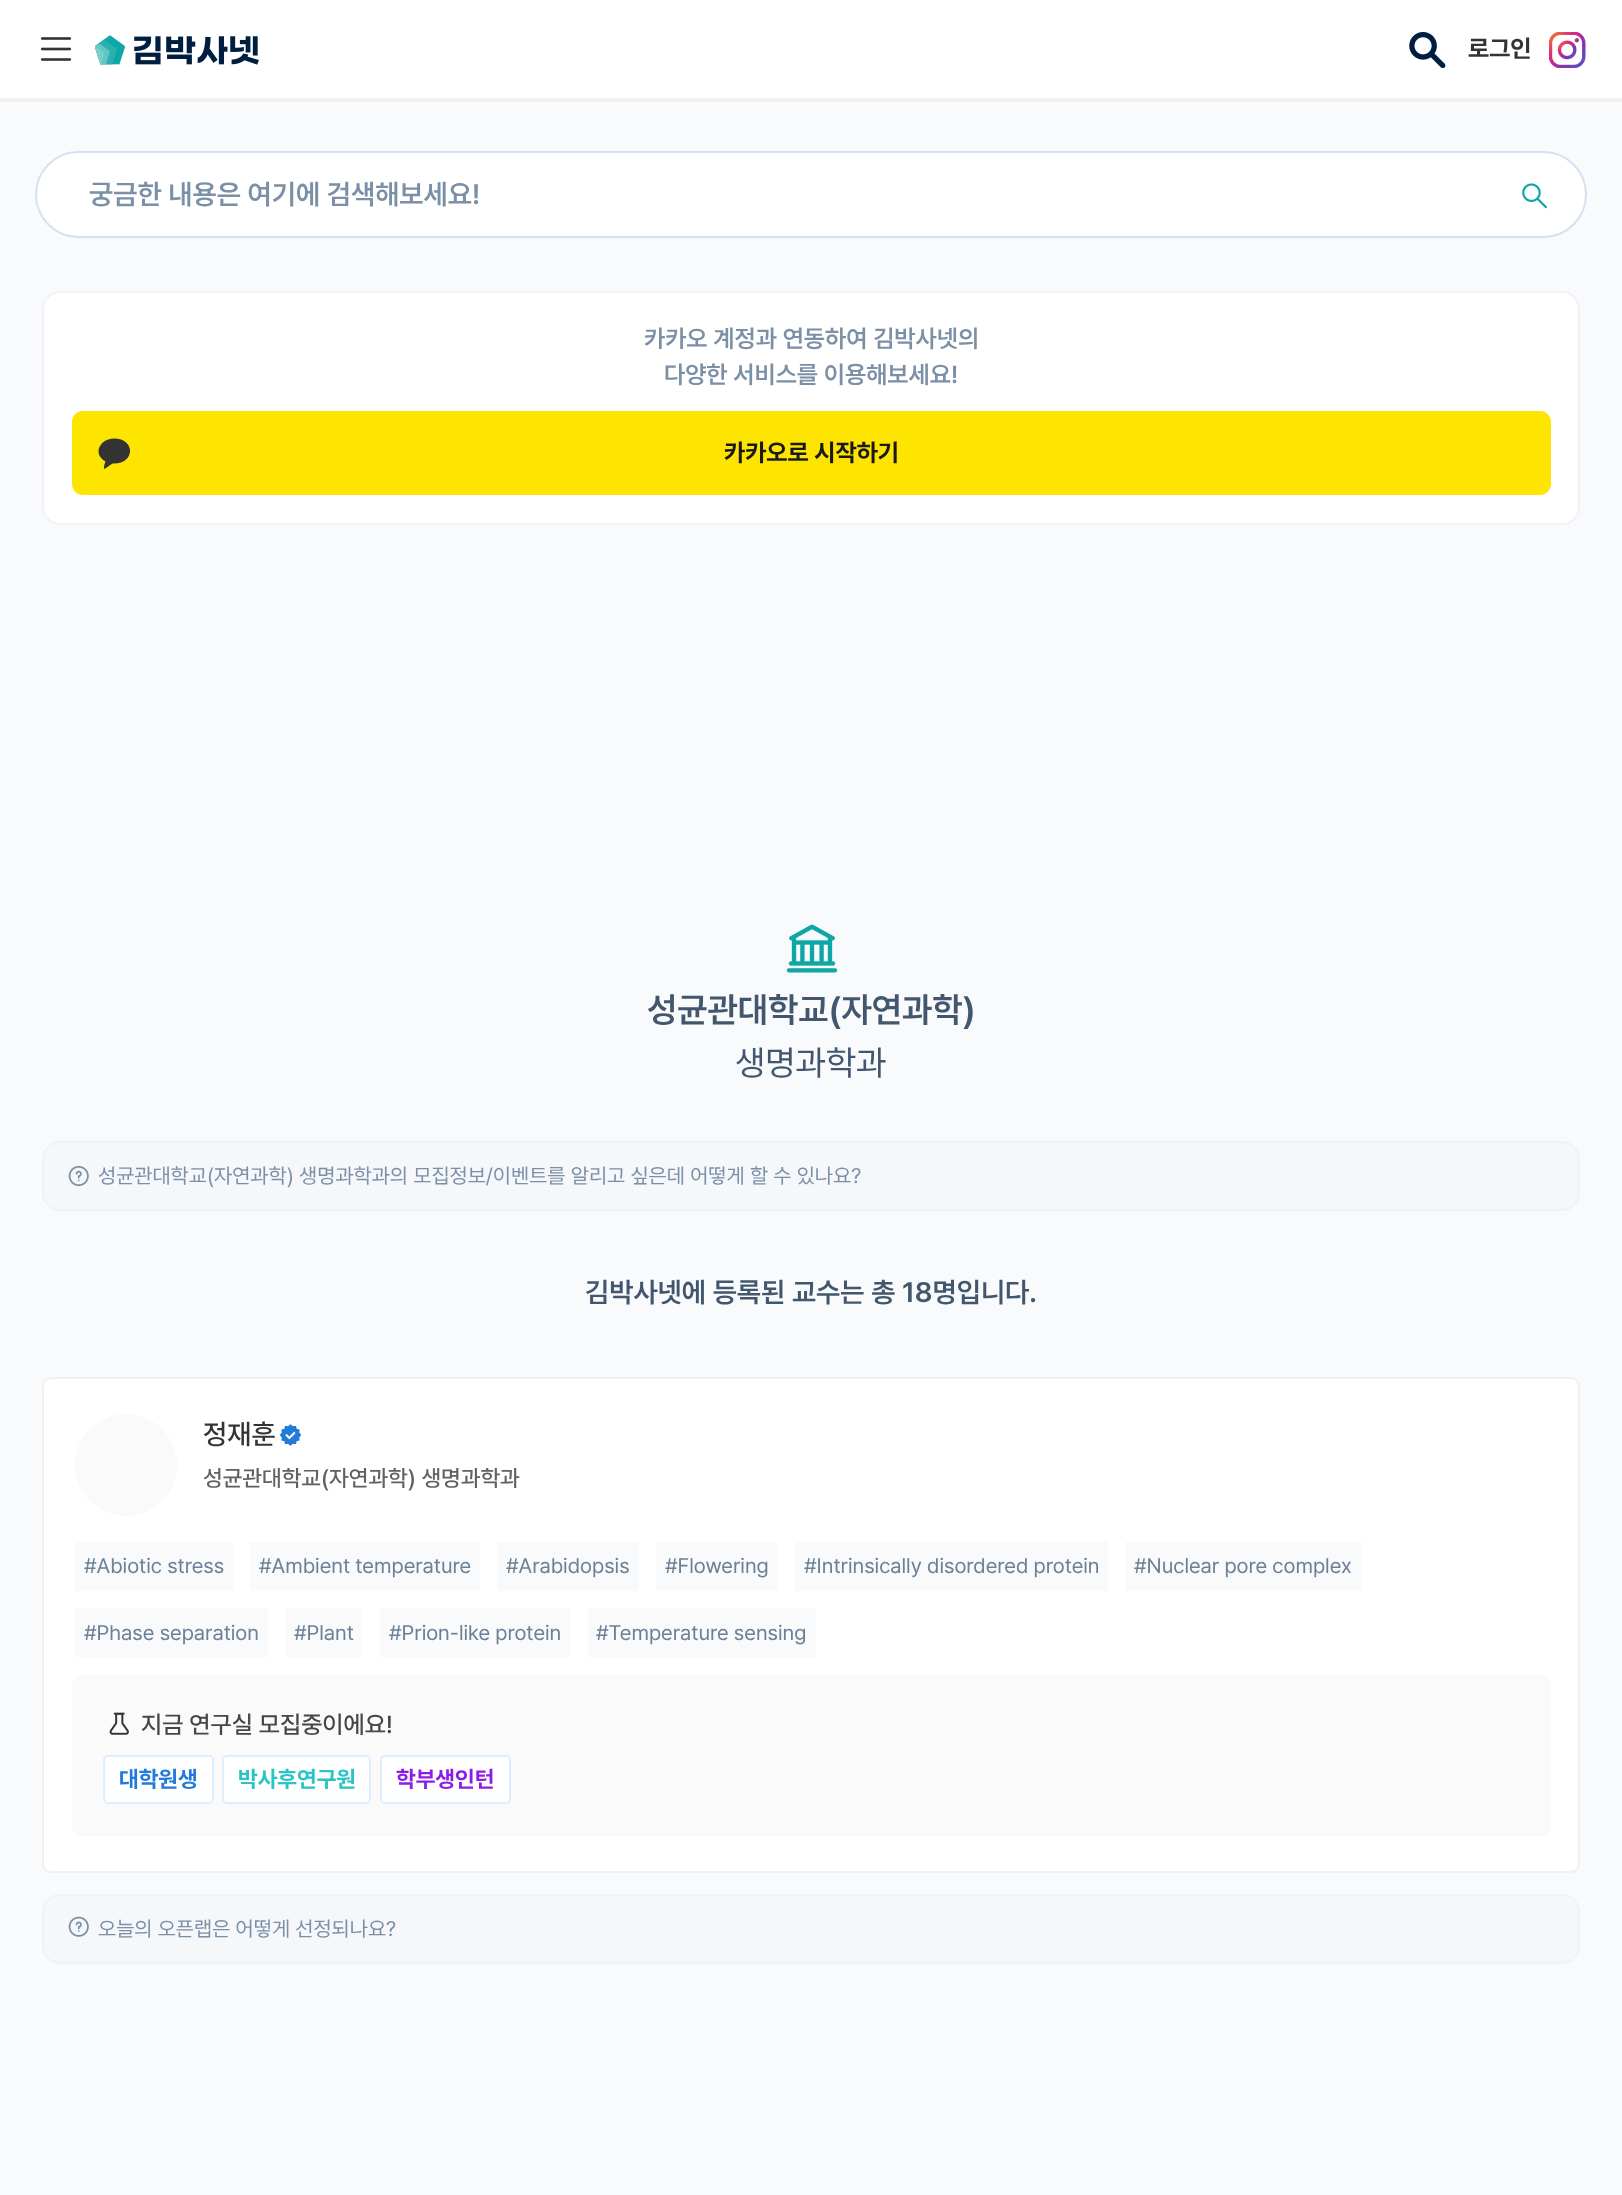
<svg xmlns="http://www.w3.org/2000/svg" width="1622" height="2195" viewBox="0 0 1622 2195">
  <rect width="100%" height="100%" fill="#f9fafc"/>
  <rect x="0" y="0" width="1622" height="98" fill="#ffffff"/>
  <rect x="0" y="98" width="1622" height="4" fill="#f1f1f1"/>
  <image x="40" y="37" width="32" height="24" href="img1.png"/>
  <image x="95" y="35" width="164" height="30" href="img2.png"/>
  <image x="1409" y="32" width="37" height="36" href="img3.png"/>
  <text x="1468" y="57" font-family="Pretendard" font-size="24.5" font-weight="bold" fill="#333333">로그인</text>
  <image x="1549" y="32" width="37" height="36" href="img4.png"/>
  <rect x="36" y="152" width="1550" height="85" rx="42.5" fill="#ffffff" stroke="#d6e1f0" stroke-width="2"/>
  <text x="89" y="204" font-family="Pretendard" font-size="28" font-weight="600" fill="#7b90a6">궁금한 내용은 여기에 검색해보세요!</text>
  <image x="1522" y="183" width="25" height="26" href="img5.png"/>
  <rect x="43" y="292" width="1536" height="232" rx="17" fill="#ffffff" stroke="#eff3f9" stroke-width="2"/>
  <text x="644" y="347" font-family="Pretendard" font-size="24.5" font-weight="600" fill="#7b90a6">카카오 계정과 연동하여 김박사넷의</text>
  <text x="664" y="383" font-family="Pretendard" font-size="24.5" font-weight="600" fill="#7b90a6">다양한 서비스를 이용해보세요!</text>
  <rect x="72" y="411" width="1479" height="84" rx="11" fill="#fee500"/>
  <path d="M114 438.5C100 438.5 92 454 105.5 461.5C105 462.5 103 468.5 104.5 469L112.5 463.5H114C135.5 463.5 135.5 438.5 114 438.5Z" fill="#333333" fill-rule="evenodd"/>
  <text x="724" y="461" font-family="Pretendard" font-size="24.5" font-weight="bold" fill="#191919">카카오로 시작하기</text>
  <image x="786" y="924" width="52" height="49" href="img6.png"/>
  <text x="647" y="1022" font-family="Pretendard" font-size="35" font-weight="600" fill="#42576e">성균관대학교(자연과학)</text>
  <text x="735" y="1075" font-family="Pretendard" font-size="35" fill="#42576e">생명과학과</text>
  <rect x="43" y="1142" width="1536" height="68" rx="17" fill="#f5f7fa" stroke="#eff3f9" stroke-width="2"/>
  <image x="68" y="1165" width="21" height="22" href="img7.png"/>
  <text x="98" y="1183" font-family="Pretendard" font-size="21" fill="#7b90a6">성균관대학교(자연과학) 생명과학과의 모집정보/이벤트를 알리고 싶은데 어떻게 할 수 있나요?</text>
  <text x="585" y="1302" font-family="Pretendard" font-size="28" font-weight="600" fill="#42576e">김박사넷에 등록된 교수는 총 18명입니다.</text>
  <rect x="43" y="1378" width="1536" height="494" rx="8" fill="#ffffff" stroke="#f1f1f1" stroke-width="2"/>
  <circle cx="126" cy="1465" r="51" fill="#fafafa"/>
  <text x="203" y="1444" font-family="Pretendard" font-size="28" font-weight="500" fill="#333333">정재훈</text>
  <image x="279" y="1424" width="23" height="22" href="img8.png"/>
  <text x="203" y="1486" font-family="Pretendard" font-size="22.75" font-weight="500" fill="#616161">성균관대학교(자연과학) 생명과학과</text>
  <rect x="75" y="1542" width="158" height="49" fill="#f9fafc"/>
  <text x="84" y="1573" font-family="Pretendard" font-size="21" fill="#6c8196">#Abiotic stress</text>
  <rect x="250" y="1542" width="230" height="49" fill="#f9fafc"/>
  <text x="259" y="1573" font-family="Pretendard" font-size="21" fill="#6c8196">#Ambient temperature</text>
  <rect x="497" y="1542" width="142" height="49" fill="#f9fafc"/>
  <text x="506" y="1573" font-family="Pretendard" font-size="21" fill="#6c8196">#Arabidopsis</text>
  <rect x="656" y="1542" width="121" height="49" fill="#f9fafc"/>
  <text x="665" y="1573" font-family="Pretendard" font-size="21" fill="#6c8196">#Flowering</text>
  <rect x="795" y="1542" width="313" height="49" fill="#f9fafc"/>
  <text x="804" y="1573" font-family="Pretendard" font-size="21" fill="#6c8196">#Intrinsically disordered protein</text>
  <rect x="1125" y="1542" width="237" height="49" fill="#f9fafc"/>
  <text x="1134" y="1573" font-family="Pretendard" font-size="21" fill="#6c8196">#Nuclear pore complex</text>
  <rect x="75" y="1608" width="193" height="49" fill="#f9fafc"/>
  <text x="84" y="1640" font-family="Pretendard" font-size="21" fill="#6c8196">#Phase separation</text>
  <rect x="285" y="1608" width="77" height="49" fill="#f9fafc"/>
  <text x="294" y="1640" font-family="Pretendard" font-size="21" fill="#6c8196">#Plant</text>
  <rect x="380" y="1608" width="191" height="49" fill="#f9fafc"/>
  <text x="389" y="1640" font-family="Pretendard" font-size="21" fill="#6c8196">#Prion-like protein</text>
  <rect x="588" y="1608" width="228" height="49" fill="#f9fafc"/>
  <text x="596" y="1640" font-family="Pretendard" font-size="21" fill="#6c8196">#Temperature sensing</text>
  <rect x="72" y="1675" width="1479" height="161" rx="9" fill="#fafafa"/>
  <image x="109" y="1712" width="20" height="23" href="img9.png"/>
  <text x="141" y="1733" font-family="Pretendard" font-size="24.5" font-weight="500" fill="#464646">지금 연구실 모집중이에요!</text>
  <rect x="104" y="1756" width="109" height="47" rx="4" fill="#ffffff" stroke="#deeeff" stroke-width="2"/>
  <text x="119" y="1787" font-family="Pretendard" font-size="22.75" font-weight="bold" fill="#237bd9">대학원생</text>
  <rect x="223" y="1756" width="147" height="47" rx="4" fill="#ffffff" stroke="#deeeff" stroke-width="2"/>
  <text x="238" y="1787" font-family="Pretendard" font-size="22.75" font-weight="bold" fill="#2ac4c4">박사후연구원</text>
  <rect x="381" y="1756" width="129" height="47" rx="4" fill="#ffffff" stroke="#deeeff" stroke-width="2"/>
  <text x="396" y="1787" font-family="Pretendard" font-size="22.75" font-weight="bold" fill="#8d1ce6">학부생인턴</text>
  <rect x="43" y="1895" width="1536" height="68" rx="17" fill="#f5f7fa" stroke="#eff3f9" stroke-width="2"/>
  <image x="68" y="1916" width="21" height="21" href="img10.png"/>
  <text x="98" y="1936" font-family="Pretendard" font-size="21" fill="#7b90a6">오늘의 오픈랩은 어떻게 선정되나요?</text>
</svg>
